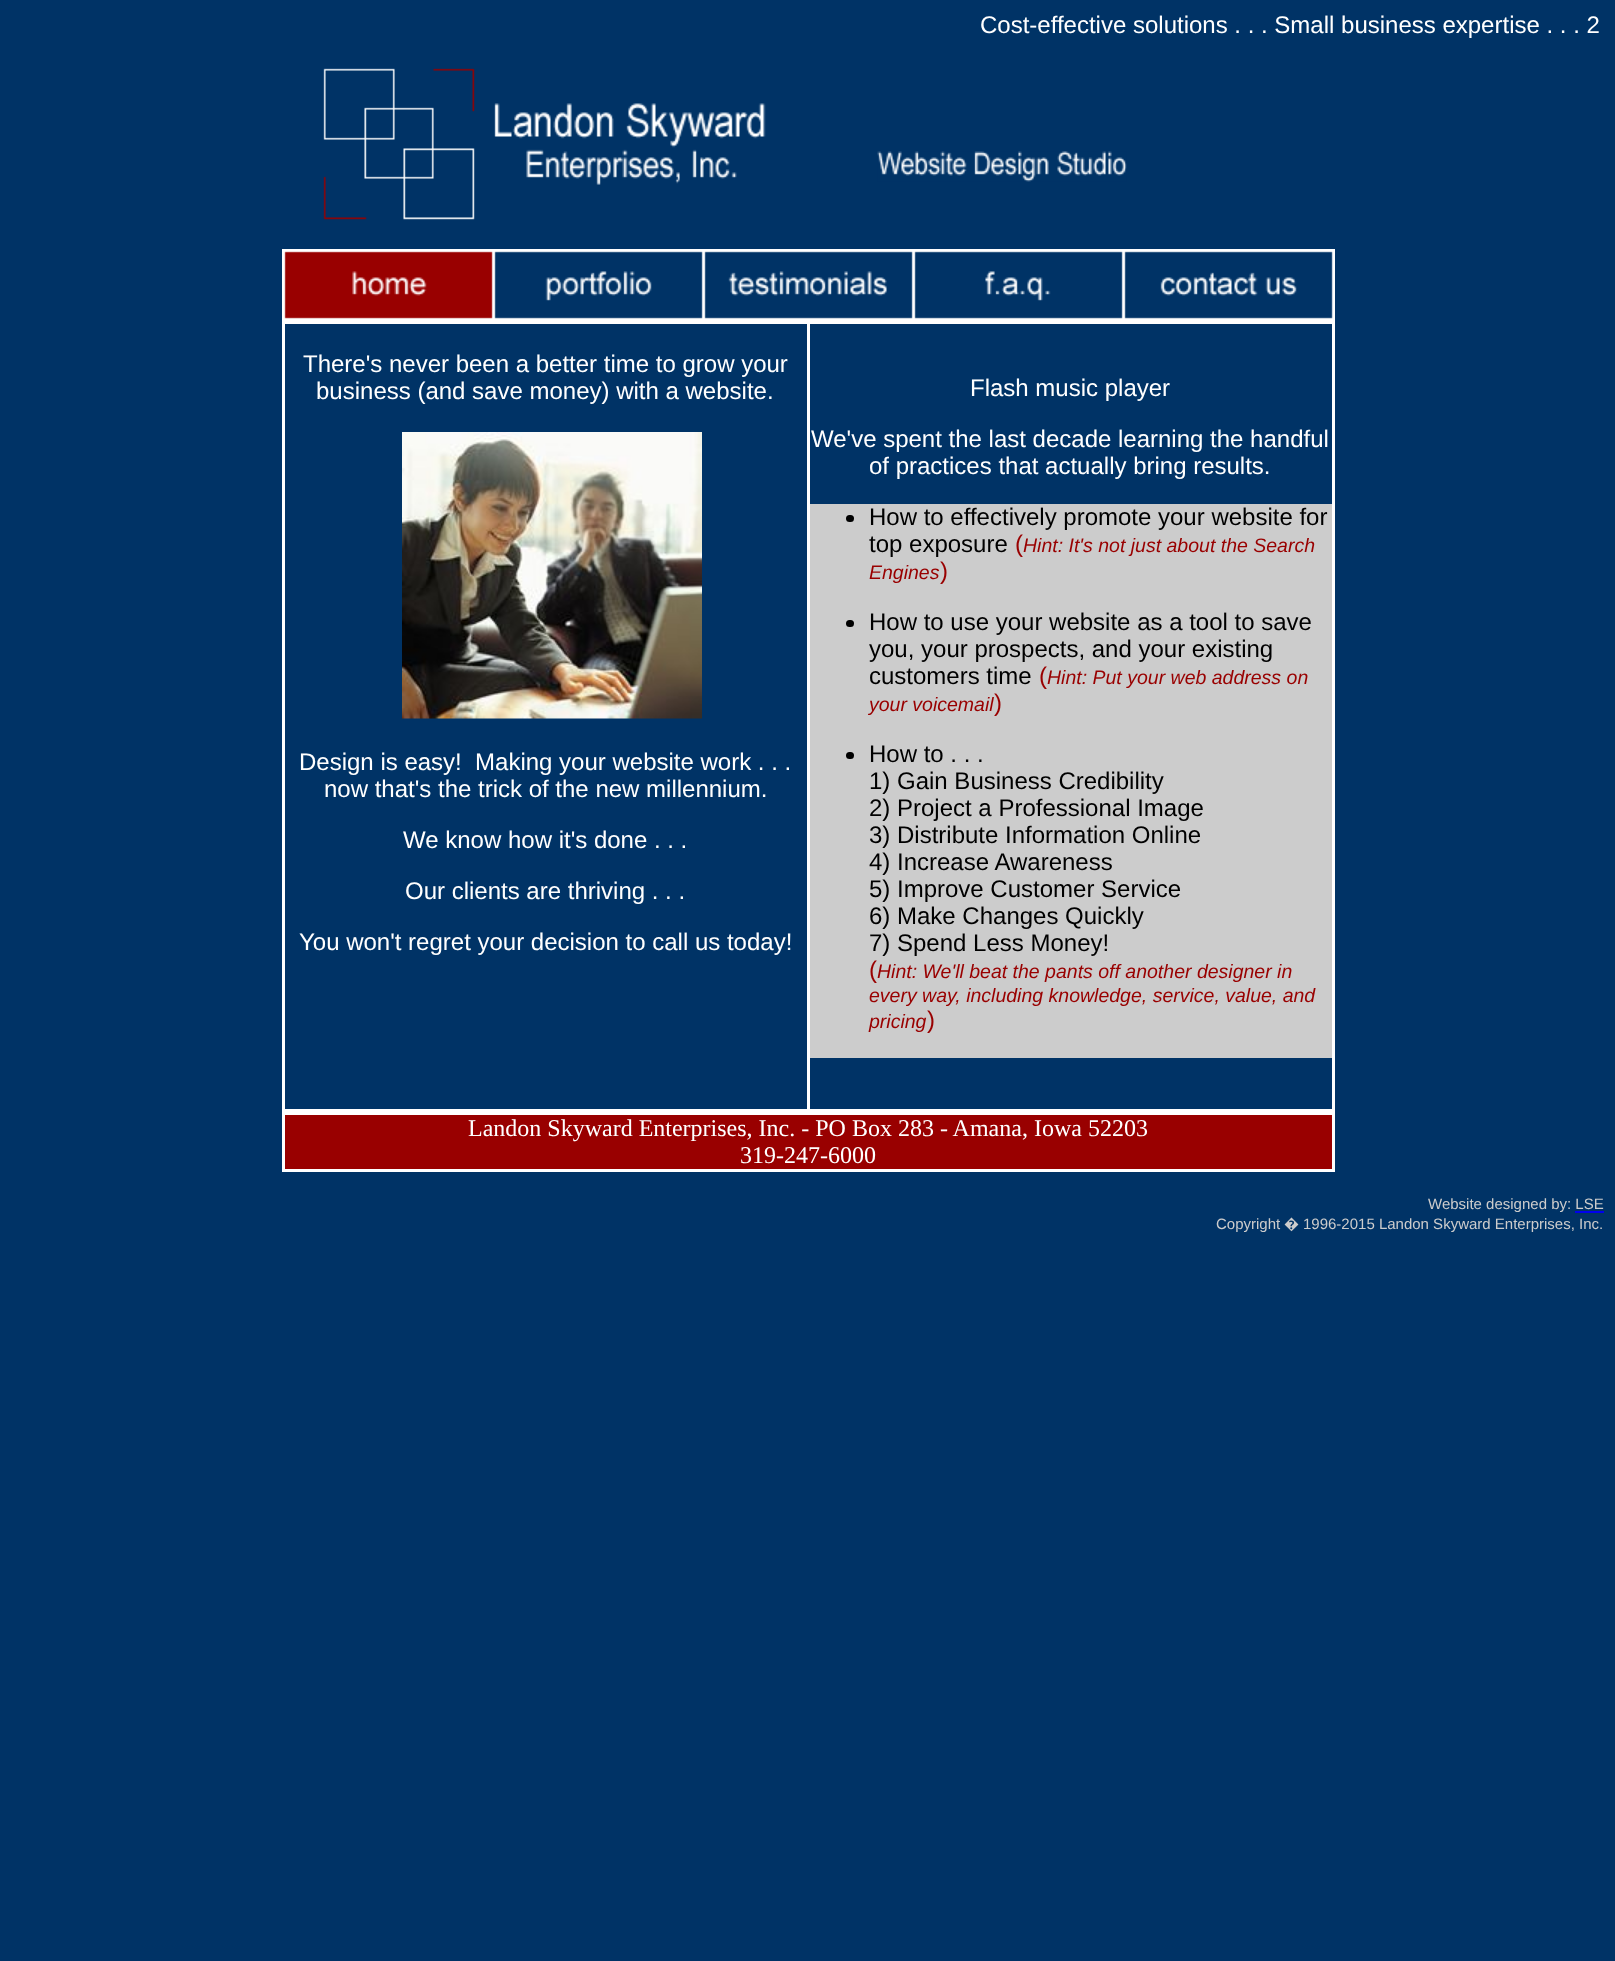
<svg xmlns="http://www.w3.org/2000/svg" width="1615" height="1961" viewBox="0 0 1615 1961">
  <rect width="100%" height="100%" fill="#003366"/>
  <text x="980" y="33" font-family="Liberation Sans" font-size="24" fill="#ffffff">Cost-effective solutions . . . Small business expertise . . . 2</text>
  <image x="323" y="68" width="443" height="152" href="img1.png"/>
  <image x="877" y="151" width="250" height="31" href="img2.png"/>
  <rect x="1126" y="163" width="1" height="7" fill="#003266" fill-opacity="0.5"/>
  <image x="282" y="249" width="1053" height="72" href="img3.png"/>
  <rect x="282" y="321" width="1053" height="851" fill="#ffffff"/>
  <rect x="285" y="324" width="522" height="785" fill="#003366"/>
  <text x="303" y="372" font-family="Liberation Sans" font-size="24" fill="#ffffff">There's never been a better time to grow your</text>
  <text x="316" y="399" font-family="Liberation Sans" font-size="24" fill="#ffffff">business (and save money) with a website.</text>
  <image x="402" y="432" width="300" height="287" href="img4.png"/>
  <text x="299" y="770" font-family="Liberation Sans" font-size="24" fill="#ffffff" xml:space="preserve">Design is easy!  Making your website work . . .</text>
  <text x="324" y="797" font-family="Liberation Sans" font-size="24" fill="#ffffff">now that's the trick of the new millennium.</text>
  <text x="403" y="848" font-family="Liberation Sans" font-size="24" fill="#ffffff">We know how it's done . . .</text>
  <text x="405" y="899" font-family="Liberation Sans" font-size="24" fill="#ffffff">Our clients are thriving . . .</text>
  <text x="299" y="950" font-family="Liberation Sans" font-size="24" fill="#ffffff">You won't regret your decision to call us today!</text>
  <rect x="810" y="324" width="522" height="785" fill="#003366"/>
  <text x="970" y="396" font-family="Liberation Sans" font-size="24" fill="#ffffff">Flash music player</text>
  <text x="811" y="447" font-family="Liberation Sans" font-size="24" fill="#ffffff">We've spent the last decade learning the handful</text>
  <text x="869" y="474" font-family="Liberation Sans" font-size="24" fill="#ffffff">of practices that actually bring results.</text>
  <rect x="810" y="504" width="522" height="554" fill="#cccccc"/>
  <rect x="846" y="515" width="8" height="7" rx="3.5" fill="#000000"/>
  <text x="869" y="525" font-family="Liberation Sans" font-size="24" fill="#000000">How to effectively promote your website for</text>
  <text x="869" y="552" font-family="Liberation Sans" font-size="24" fill="#000000">top exposure</text>
  <text x="1015" y="552" font-family="Liberation Sans" font-size="24" fill="#990000">(</text>
  <text x="1023" y="552" font-family="Liberation Sans" font-size="19.5" font-style="italic" fill="#990000">Hint: It's not just about the Search</text>
  <text x="869" y="579" font-family="Liberation Sans" font-size="19.5" font-style="italic" fill="#990000">Engines</text>
  <text x="940" y="579" font-family="Liberation Sans" font-size="24" fill="#990000">)</text>
  <rect x="846" y="620" width="8" height="7" rx="3.5" fill="#000000"/>
  <text x="869" y="630" font-family="Liberation Sans" font-size="24" fill="#000000">How to use your website as a tool to save</text>
  <text x="869" y="657" font-family="Liberation Sans" font-size="24" fill="#000000">you, your prospects, and your existing</text>
  <text x="869" y="684" font-family="Liberation Sans" font-size="24" fill="#000000">customers time</text>
  <text x="1039" y="684" font-family="Liberation Sans" font-size="24" fill="#990000">(</text>
  <text x="1047" y="684" font-family="Liberation Sans" font-size="19.5" font-style="italic" fill="#990000">Hint: Put your web address on</text>
  <text x="869" y="711" font-family="Liberation Sans" font-size="19.5" font-style="italic" fill="#990000">your voicemail</text>
  <text x="994" y="711" font-family="Liberation Sans" font-size="24" fill="#990000">)</text>
  <rect x="846" y="752" width="8" height="7" rx="3.5" fill="#000000"/>
  <text x="869" y="762" font-family="Liberation Sans" font-size="24" fill="#000000">How to . . .</text>
  <text x="869" y="789" font-family="Liberation Sans" font-size="24" fill="#000000">1) Gain Business Credibility</text>
  <text x="869" y="816" font-family="Liberation Sans" font-size="24" fill="#000000">2) Project a Professional Image</text>
  <text x="869" y="843" font-family="Liberation Sans" font-size="24" fill="#000000">3) Distribute Information Online</text>
  <text x="869" y="870" font-family="Liberation Sans" font-size="24" fill="#000000">4) Increase Awareness</text>
  <text x="869" y="897" font-family="Liberation Sans" font-size="24" fill="#000000">5) Improve Customer Service</text>
  <text x="869" y="924" font-family="Liberation Sans" font-size="24" fill="#000000">6) Make Changes Quickly</text>
  <text x="869" y="951" font-family="Liberation Sans" font-size="24" fill="#000000">7) Spend Less Money!</text>
  <text x="869" y="978" font-family="Liberation Sans" font-size="24" fill="#990000">(</text>
  <text x="877" y="978" font-family="Liberation Sans" font-size="19.5" font-style="italic" fill="#990000">Hint: We'll beat the pants off another designer in</text>
  <text x="869" y="1002" font-family="Liberation Sans" font-size="19.5" font-style="italic" fill="#990000">every way, including knowledge, service, value, and</text>
  <text x="869" y="1028" font-family="Liberation Sans" font-size="19.5" font-style="italic" fill="#990000">pricing</text>
  <text x="927" y="1028" font-family="Liberation Sans" font-size="24" fill="#990000">)</text>
  <rect x="285" y="1115" width="1047" height="54" fill="#990000"/>
  <text x="468" y="1136" font-family="Liberation Serif" font-size="24" fill="#ffffff">Landon Skyward Enterprises, Inc. - PO Box 283 - Amana, Iowa 52203</text>
  <text x="740" y="1163" font-family="Liberation Serif" font-size="24" fill="#ffffff">319-247-6000</text>
  <text x="1428" y="1209" font-family="Liberation Sans" font-size="15" fill="#cccccc">Website designed by: LSE</text>
  <rect x="1575" y="1211" width="29" height="2" fill="#0000ee"/>
  <text x="1216" y="1229" font-family="Liberation Sans" font-size="15" fill="#cccccc">Copyright</text>
  <text x="1284" y="1229" font-family="Noto Sans" font-size="15" fill="#cccccc">�</text>
  <text x="1303" y="1229" font-family="Liberation Sans" font-size="15" fill="#cccccc">1996-2015 Landon Skyward Enterprises, Inc.</text>
</svg>
